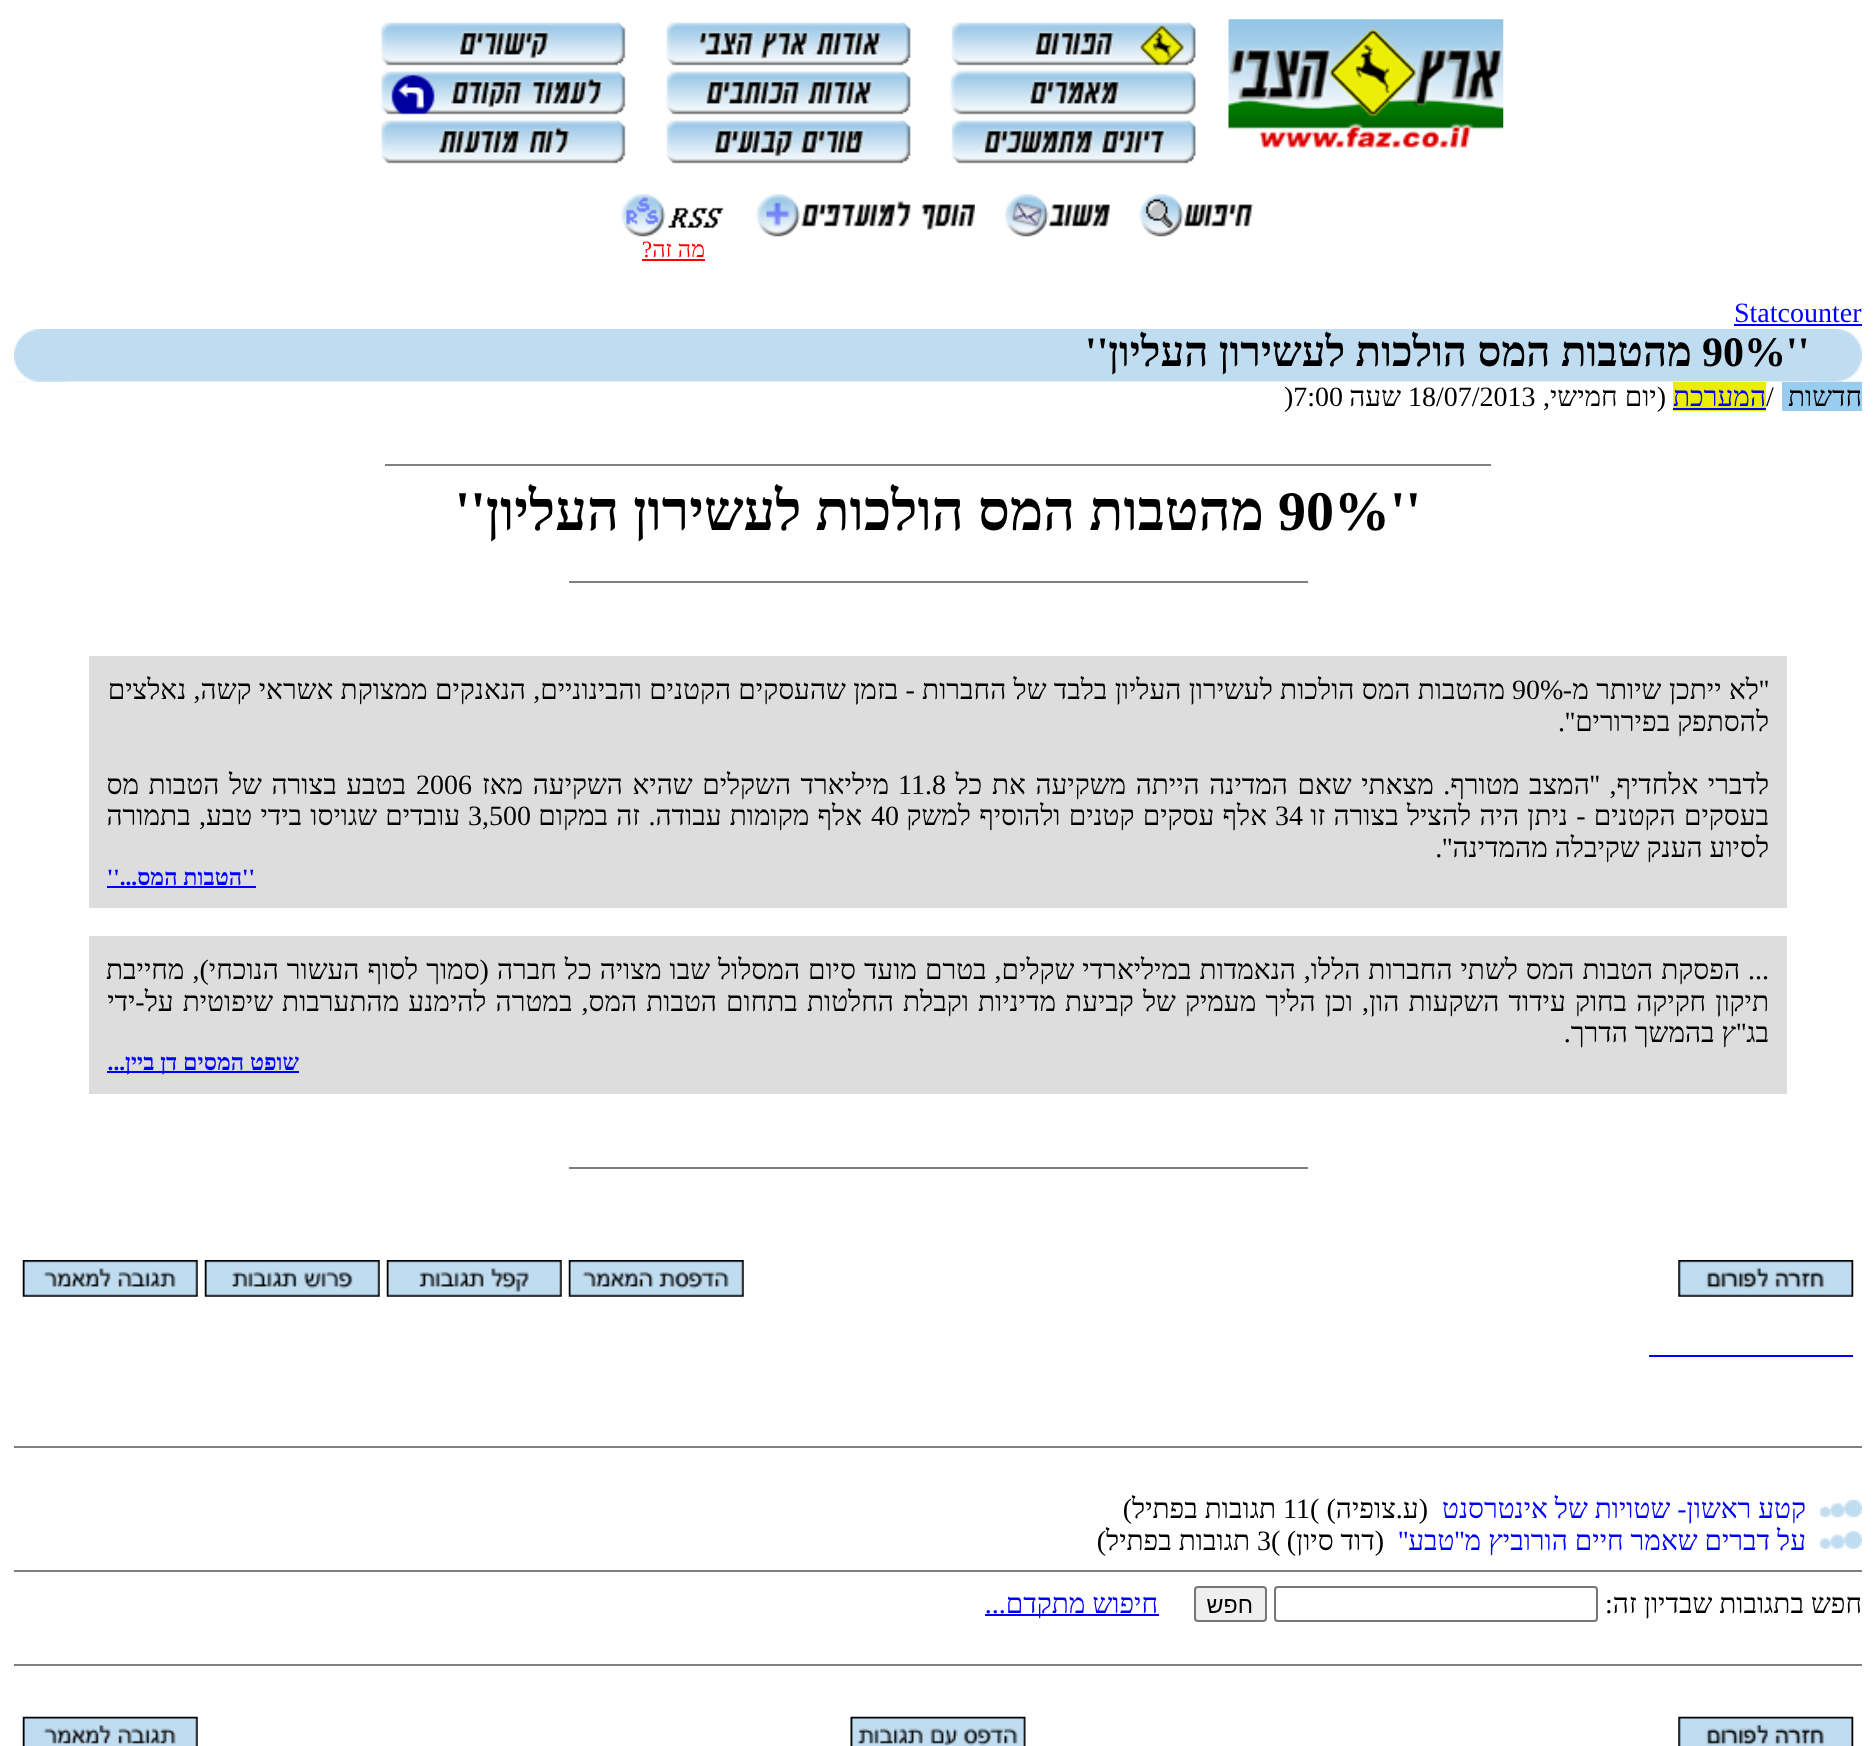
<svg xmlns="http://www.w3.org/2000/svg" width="1876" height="1746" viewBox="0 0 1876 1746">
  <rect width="100%" height="100%" fill="#ffffff"/>
  <image x="1228" y="19" width="276" height="130" href="img1.png"/>
  <image x="951" y="22" width="245" height="44" href="img2.png"/>
  <image x="950" y="69" width="246" height="46" href="img3.png"/>
  <image x="951" y="120" width="245" height="44" href="img4.png"/>
  <image x="666" y="22" width="245" height="44" href="img5.png"/>
  <image x="666" y="71" width="245" height="44" href="img6.png"/>
  <image x="666" y="120" width="245" height="44" href="img7.png"/>
  <image x="381" y="22" width="245" height="44" href="img8.png"/>
  <image x="381" y="71" width="245" height="44" href="img9.png"/>
  <image x="381" y="120" width="245" height="44" href="img10.png"/>
  <image x="1139" y="194" width="115" height="43" href="img11.png"/>
  <image x="1004" y="194" width="106" height="43" href="img12.png"/>
  <image x="756" y="194" width="219" height="43" href="img13.png"/>
  <image x="621" y="194" width="103" height="43" href="img14.png"/>
  <text x="705" y="257" font-family="Liberation Serif" font-size="23.25" direction="rtl" fill="#ff0000">מה זה?</text>
  <rect x="642" y="259" width="63" height="2" fill="#ff0000"/>
  <text x="1734" y="322" font-family="Liberation Serif" font-size="28" fill="#0000ff">Statcounter</text>
  <rect x="1734" y="324" width="128" height="2" fill="#0000ff"/>
  <rect x="66" y="329" width="1744" height="52" fill="#c0dcf0"/>
  <rect x="14" y="381" width="1848" height="1" fill="#e0eef8"/>
  <image x="1809" y="329" width="53" height="53" href="img15.png"/>
  <text x="1702" y="366" font-family="Liberation Serif" font-size="42" font-weight="bold" fill="#000000">90%''</text>
  <text x="1692" y="366" font-family="Liberation Serif" font-size="42" font-weight="bold" direction="rtl" fill="#000000">מהטבות המס הולכות לעשירון העליון''</text>
  <image x="14" y="329" width="53" height="53" href="img16.png"/>
  <rect x="1782" y="382" width="80" height="29" fill="#99cdf0"/>
  <text x="1862" y="406" font-family="Liberation Serif" font-size="28" direction="rtl" fill="#000000">חדשות</text>
  <text x="1766" y="406" font-family="Liberation Serif" font-size="28" fill="#000000">/</text>
  <rect x="1673" y="382" width="93" height="29" fill="#eced05"/>
  <text x="1766" y="406" font-family="Liberation Serif" font-size="28" direction="rtl" fill="#0000ff">המערכת</text>
  <rect x="1673" y="408" width="93" height="2" fill="#0000ff"/>
  <text x="1666" y="406" font-family="Liberation Serif" font-size="28" direction="rtl" fill="#000000">(יום חמישי,</text>
  <text x="1408" y="406" font-family="Liberation Serif" font-size="28" fill="#000000">18/07/2013</text>
  <text x="1401" y="406" font-family="Liberation Serif" font-size="28" direction="rtl" fill="#000000">שעה</text>
  <text x="1284" y="406" font-family="Liberation Serif" font-size="28" fill="#000000">)7:00</text>
  <rect x="385" y="464" width="1106" height="2" fill="#808080"/>
  <text x="1278" y="530" font-family="Liberation Serif" font-size="56" font-weight="bold" fill="#000000">90%''</text>
  <text x="1264" y="530" font-family="Liberation Serif" font-size="56" font-weight="bold" direction="rtl" fill="#000000">מהטבות המס הולכות לעשירון העליון''</text>
  <rect x="569" y="581" width="739" height="2" fill="#808080"/>
  <rect x="89" y="656" width="1698" height="252" fill="#dddddd"/>
  <text x="1769" y="699" word-spacing="0.5" font-family="Liberation Serif" font-size="28" direction="rtl" fill="#000000">''לא ייתכן שיותר מ-</text>
  <text x="1512" y="699" font-family="Liberation Serif" font-size="28" fill="#000000">90%</text>
  <text x="1505" y="699" word-spacing="0.3" font-family="Liberation Serif" font-size="28" direction="rtl" fill="#000000">מהטבות המס הולכות לעשירון העליון בלבד של החברות - בזמן שהעסקים הקטנים והבינוניים, הנאנקים ממצוקת אשראי קשה, נאלצים</text>
  <text x="1769" y="731" font-family="Liberation Serif" font-size="28" direction="rtl" fill="#000000">להסתפק בפירורים''.</text>
  <text x="1769" y="794" word-spacing="2.6" font-family="Liberation Serif" font-size="28" direction="rtl" fill="#000000">לדברי אלחדיף, ''המצב מטורף. מצאתי שאם המדינה הייתה משקיעה את כל</text>
  <text x="898" y="794" font-family="Liberation Serif" font-size="28" fill="#000000">11.8</text>
  <text x="889" y="794" word-spacing="2.6" font-family="Liberation Serif" font-size="28" direction="rtl" fill="#000000">מיליארד השקלים שהיא השקיעה מאז</text>
  <text x="416" y="794" font-family="Liberation Serif" font-size="28" fill="#000000">2006</text>
  <text x="406" y="794" word-spacing="2.6" font-family="Liberation Serif" font-size="28" direction="rtl" fill="#000000">בטבע בצורה של הטבות מס</text>
  <text x="1769" y="825" word-spacing="1.25" font-family="Liberation Serif" font-size="28" direction="rtl" fill="#000000">בעסקים הקטנים - ניתן היה להציל בצורה זו</text>
  <text x="1275" y="825" font-family="Liberation Serif" font-size="28" fill="#000000">34</text>
  <text x="1267" y="825" word-spacing="1.25" font-family="Liberation Serif" font-size="28" direction="rtl" fill="#000000">אלף עסקים קטנים ולהוסיף למשק</text>
  <text x="871" y="825" font-family="Liberation Serif" font-size="28" fill="#000000">40</text>
  <text x="862" y="825" word-spacing="1.25" font-family="Liberation Serif" font-size="28" direction="rtl" fill="#000000">אלף מקומות עבודה. זה במקום</text>
  <text x="468" y="825" font-family="Liberation Serif" font-size="28" fill="#000000">3,500</text>
  <text x="460" y="825" word-spacing="1.25" font-family="Liberation Serif" font-size="28" direction="rtl" fill="#000000">עובדים שגויסו בידי טבע, בתמורה</text>
  <text x="1769" y="857" font-family="Liberation Serif" font-size="28" direction="rtl" fill="#000000">לסיוע הענק שקיבלה מהמדינה''.</text>
  <text x="255" y="885" font-family="Liberation Serif" font-size="23.25" font-weight="bold" direction="rtl" fill="#0000ff">''הטבות המס...''</text>
  <rect x="107" y="886" width="149" height="2" fill="#0000ff"/>
  <rect x="89" y="936" width="1698" height="158" fill="#dddddd"/>
  <text x="1769" y="979" word-spacing="1" font-family="Liberation Serif" font-size="28" direction="rtl" fill="#000000">... הפסקת הטבות המס לשתי החברות הללו, הנאמדות במיליארדי שקלים, בטרם מועד סיום המסלול שבו מצויה כל חברה (סמוך לסוף העשור הנוכחי), מחייבת</text>
  <text x="1769" y="1011" word-spacing="2.1" font-family="Liberation Serif" font-size="28" direction="rtl" fill="#000000">תיקון חקיקה בחוק עידוד השקעות הון, וכן הליך מעמיק של קביעת מדיניות וקבלת החלטות בתחום הטבות המס, במטרה להימנע מהתערבות שיפוטית על-ידי</text>
  <text x="1769" y="1042" font-family="Liberation Serif" font-size="28" direction="rtl" fill="#000000">בג''ץ בהמשך הדרך.</text>
  <rect x="107" y="1071" width="192" height="2" fill="#0000ff"/>
  <text x="299" y="1070" font-family="Liberation Serif" font-size="23.25" font-weight="bold" direction="rtl" fill="#0000ff">שופט המסים דן ביין...</text>
  <rect x="569" y="1167" width="739" height="2" fill="#808080"/>
  <image x="1678" y="1260" width="176" height="37" href="img17.png"/>
  <rect x="1649" y="1355" width="204" height="2" fill="#0000ff"/>
  <image x="568" y="1260" width="176" height="37" href="img18.png"/>
  <image x="386" y="1260" width="176" height="37" href="img19.png"/>
  <image x="204" y="1260" width="176" height="37" href="img20.png"/>
  <image x="22" y="1260" width="176" height="37" href="img21.png"/>
  <rect x="14" y="1446" width="1848" height="2" fill="#808080"/>
  <image x="1820" y="1499" width="42" height="19" href="img22.png"/>
  <text x="1806" y="1518" font-family="Liberation Serif" font-size="28" direction="rtl" fill="#0000ff">קטע ראשון- שטויות של אינטרסנט</text>
  <text x="1428" y="1518" font-family="Liberation Serif" font-size="28" direction="rtl" fill="#000000">(ע.צופיה)</text>
  <text x="1283" y="1518" font-family="Liberation Serif" font-size="28" fill="#000000">11(</text>
  <text x="1276" y="1518" font-family="Liberation Serif" font-size="28" direction="rtl" fill="#000000">תגובות בפתיל)</text>
  <image x="1820" y="1531" width="42" height="18" href="img23.png"/>
  <text x="1806" y="1550" font-family="Liberation Serif" font-size="28" direction="rtl" fill="#0000ff">על דברים שאמר חיים הורוביץ מ''טבע''</text>
  <text x="1384" y="1550" font-family="Liberation Serif" font-size="28" direction="rtl" fill="#000000">(דוד סיון)</text>
  <text x="1257" y="1550" font-family="Liberation Serif" font-size="28" fill="#000000">3(</text>
  <text x="1250" y="1550" font-family="Liberation Serif" font-size="28" direction="rtl" fill="#000000">תגובות בפתיל)</text>
  <rect x="14" y="1570" width="1848" height="2" fill="#808080"/>
  <text x="1862" y="1613" font-family="Liberation Serif" font-size="28" direction="rtl" fill="#000000">חפש בתגובות שבדיון זה:</text>
  <rect x="1275" y="1587" width="322" height="34" rx="3" fill="none" stroke="#767676" stroke-width="2"/>
  <rect x="1195" y="1587" width="71" height="34" rx="3" fill="#efefef" stroke="#767676" stroke-width="2"/>
  <text x="1253" y="1613" font-family="Liberation Sans" font-size="23.25" direction="rtl" fill="#000000">חפש</text>
  <rect x="985" y="1614" width="174" height="2" fill="#0000ff"/>
  <text x="1158" y="1613" font-family="Liberation Serif" font-size="28" direction="rtl" fill="#0000ff">חיפוש מתקדם...</text>
  <rect x="14" y="1664" width="1848" height="2" fill="#808080"/>
  <image x="1678" y="1716" width="176" height="30" href="img24.png"/>
  <image x="850" y="1716" width="176" height="30" href="img25.png"/>
  <image x="22" y="1716" width="176" height="30" href="img26.png"/>
</svg>
